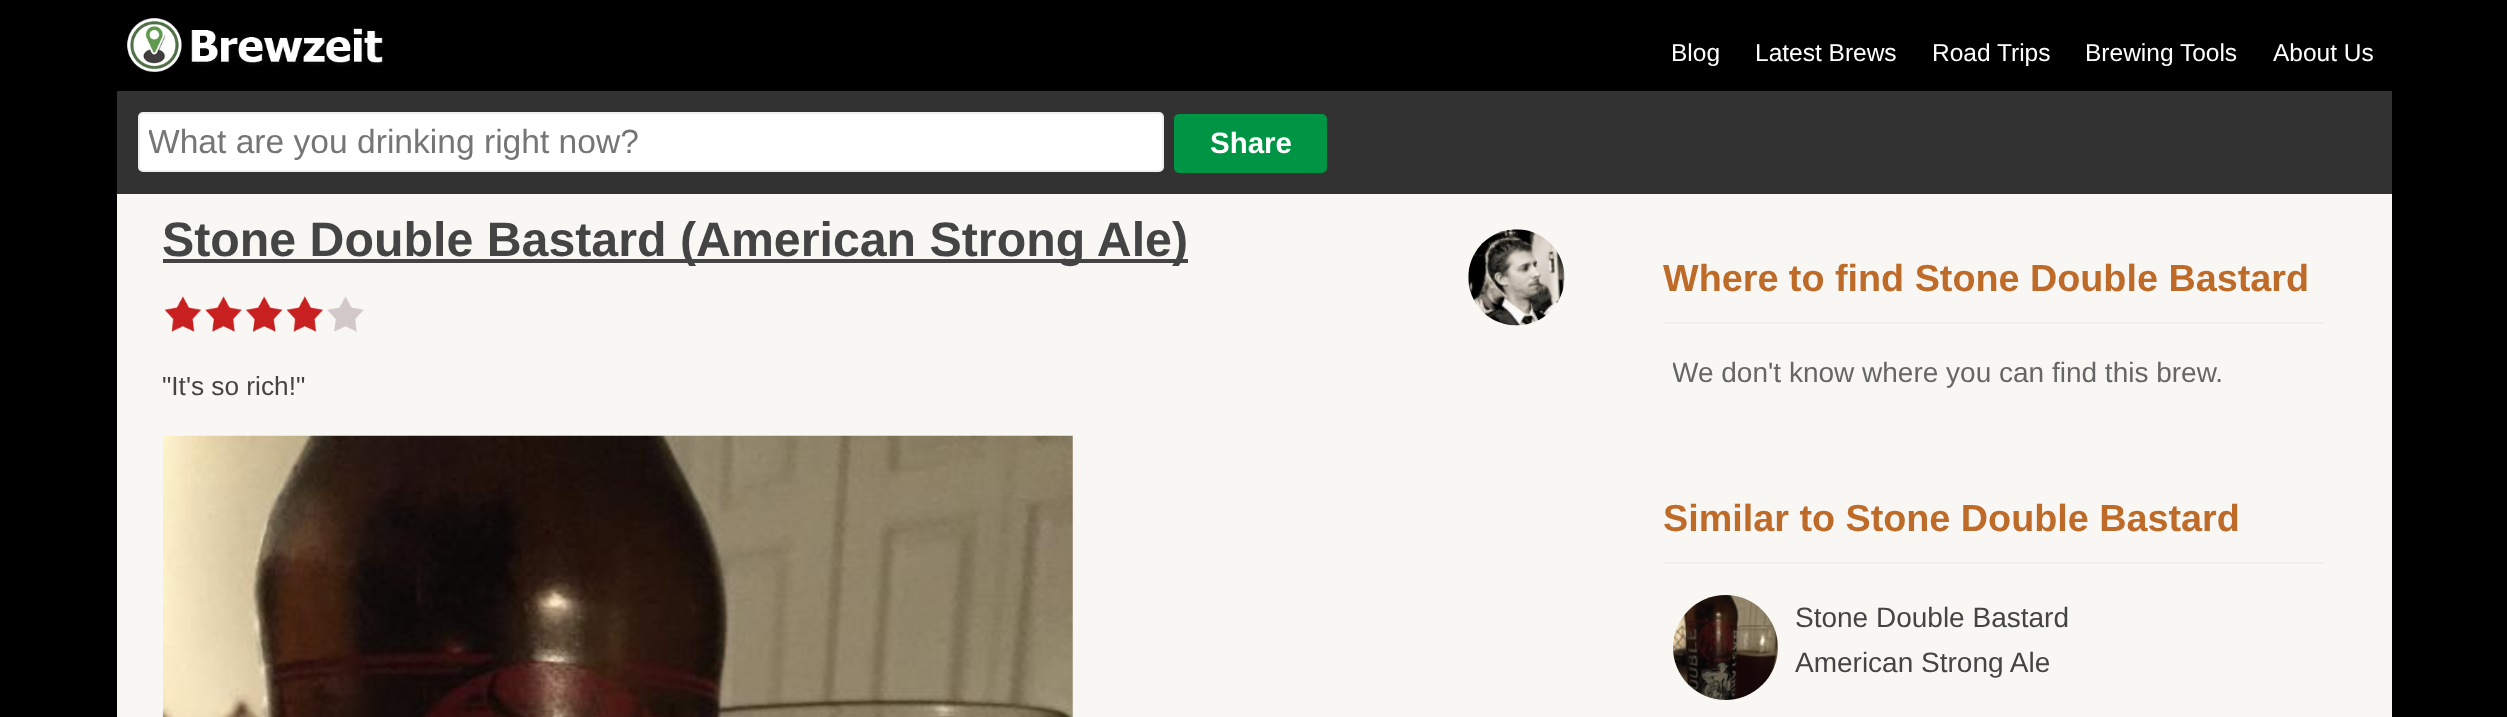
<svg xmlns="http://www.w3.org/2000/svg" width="2507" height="717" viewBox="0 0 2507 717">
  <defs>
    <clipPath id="clip1"><rect x="149" y="123" width="1004" height="38"/></clipPath>
    <clipPath id="clip2"><rect x="1673" y="355" width="642" height="35"/></clipPath>
  </defs>
  <rect width="100%" height="100%" fill="#000000"/>
  <image x="127" y="18" width="258" height="54" href="img1.png"/>
  <text x="1671" y="61" font-family="Liberation Sans" font-size="24.5" fill="#ffffff">Blog</text>
  <text x="1755" y="61" font-family="Liberation Sans" font-size="24.5" fill="#ffffff">Latest Brews</text>
  <text x="1932" y="61" font-family="Liberation Sans" font-size="24.5" fill="#ffffff">Road Trips</text>
  <text x="2085" y="61" font-family="Liberation Sans" font-size="24.5" fill="#ffffff">Brewing Tools</text>
  <text x="2273" y="61" font-family="Liberation Sans" font-size="24.5" fill="#ffffff">About Us</text>
  <rect x="117" y="91" width="2275" height="103" fill="#323232"/>
  <rect x="139" y="113" width="1024" height="58" rx="4" fill="#ffffff" stroke="#efefef" stroke-width="2"/>
  <g clip-path="url(#clip1)">
    <text x="148" y="153" font-family="Liberation Sans" font-size="33.6" fill="#757575">What are you drinking right now?</text>
  </g>
  <rect x="1174" y="114" width="153" height="59" rx="5" fill="#009545"/>
  <text x="1210" y="153" font-family="Liberation Sans" font-size="29.5" font-weight="bold" fill="#ffffff">Share</text>
  <rect x="117" y="194" width="2275" height="523" fill="#f8f7f4"/>
  <rect x="163" y="259" width="1025" height="4" fill="#444444"/>
  <text x="162" y="256" font-family="Liberation Sans" font-size="48.3" font-weight="bold" fill="#444444">Stone Double Bastard (American Strong Ale)</text>
  <image x="1468" y="229" width="97" height="97" href="img2.png"/>
  <image x="164" y="296" width="200" height="36" href="img3.png"/>
  <text x="162" y="395" font-family="Liberation Sans" font-size="26.25" fill="#444444">"It's so rich!"</text>
  <image x="162" y="435" width="911" height="282" href="img4.png"/>
  <rect x="1664" y="322" width="660" height="2" fill="#efefef"/>
  <text x="1663" y="291" font-family="Liberation Sans" font-size="37.75" font-weight="bold" fill="#be6b29">Where to find Stone Double Bastard</text>
  <g clip-path="url(#clip2)">
    <text x="1672" y="382" font-family="Liberation Sans" font-size="28" fill="#666666">We don't know where you can find this brew.</text>
  </g>
  <rect x="1664" y="562" width="660" height="2" fill="#efefef"/>
  <text x="1663" y="531" font-family="Liberation Sans" font-size="37.75" font-weight="bold" fill="#be6b29">Similar to Stone Double Bastard</text>
  <image x="1673" y="595" width="105" height="105" href="img5.png"/>
  <text x="1795" y="627" font-family="Liberation Sans" font-size="28" fill="#444444">Stone Double Bastard</text>
  <text x="1795" y="672" font-family="Liberation Sans" font-size="28" fill="#444444">American Strong Ale</text>
</svg>
